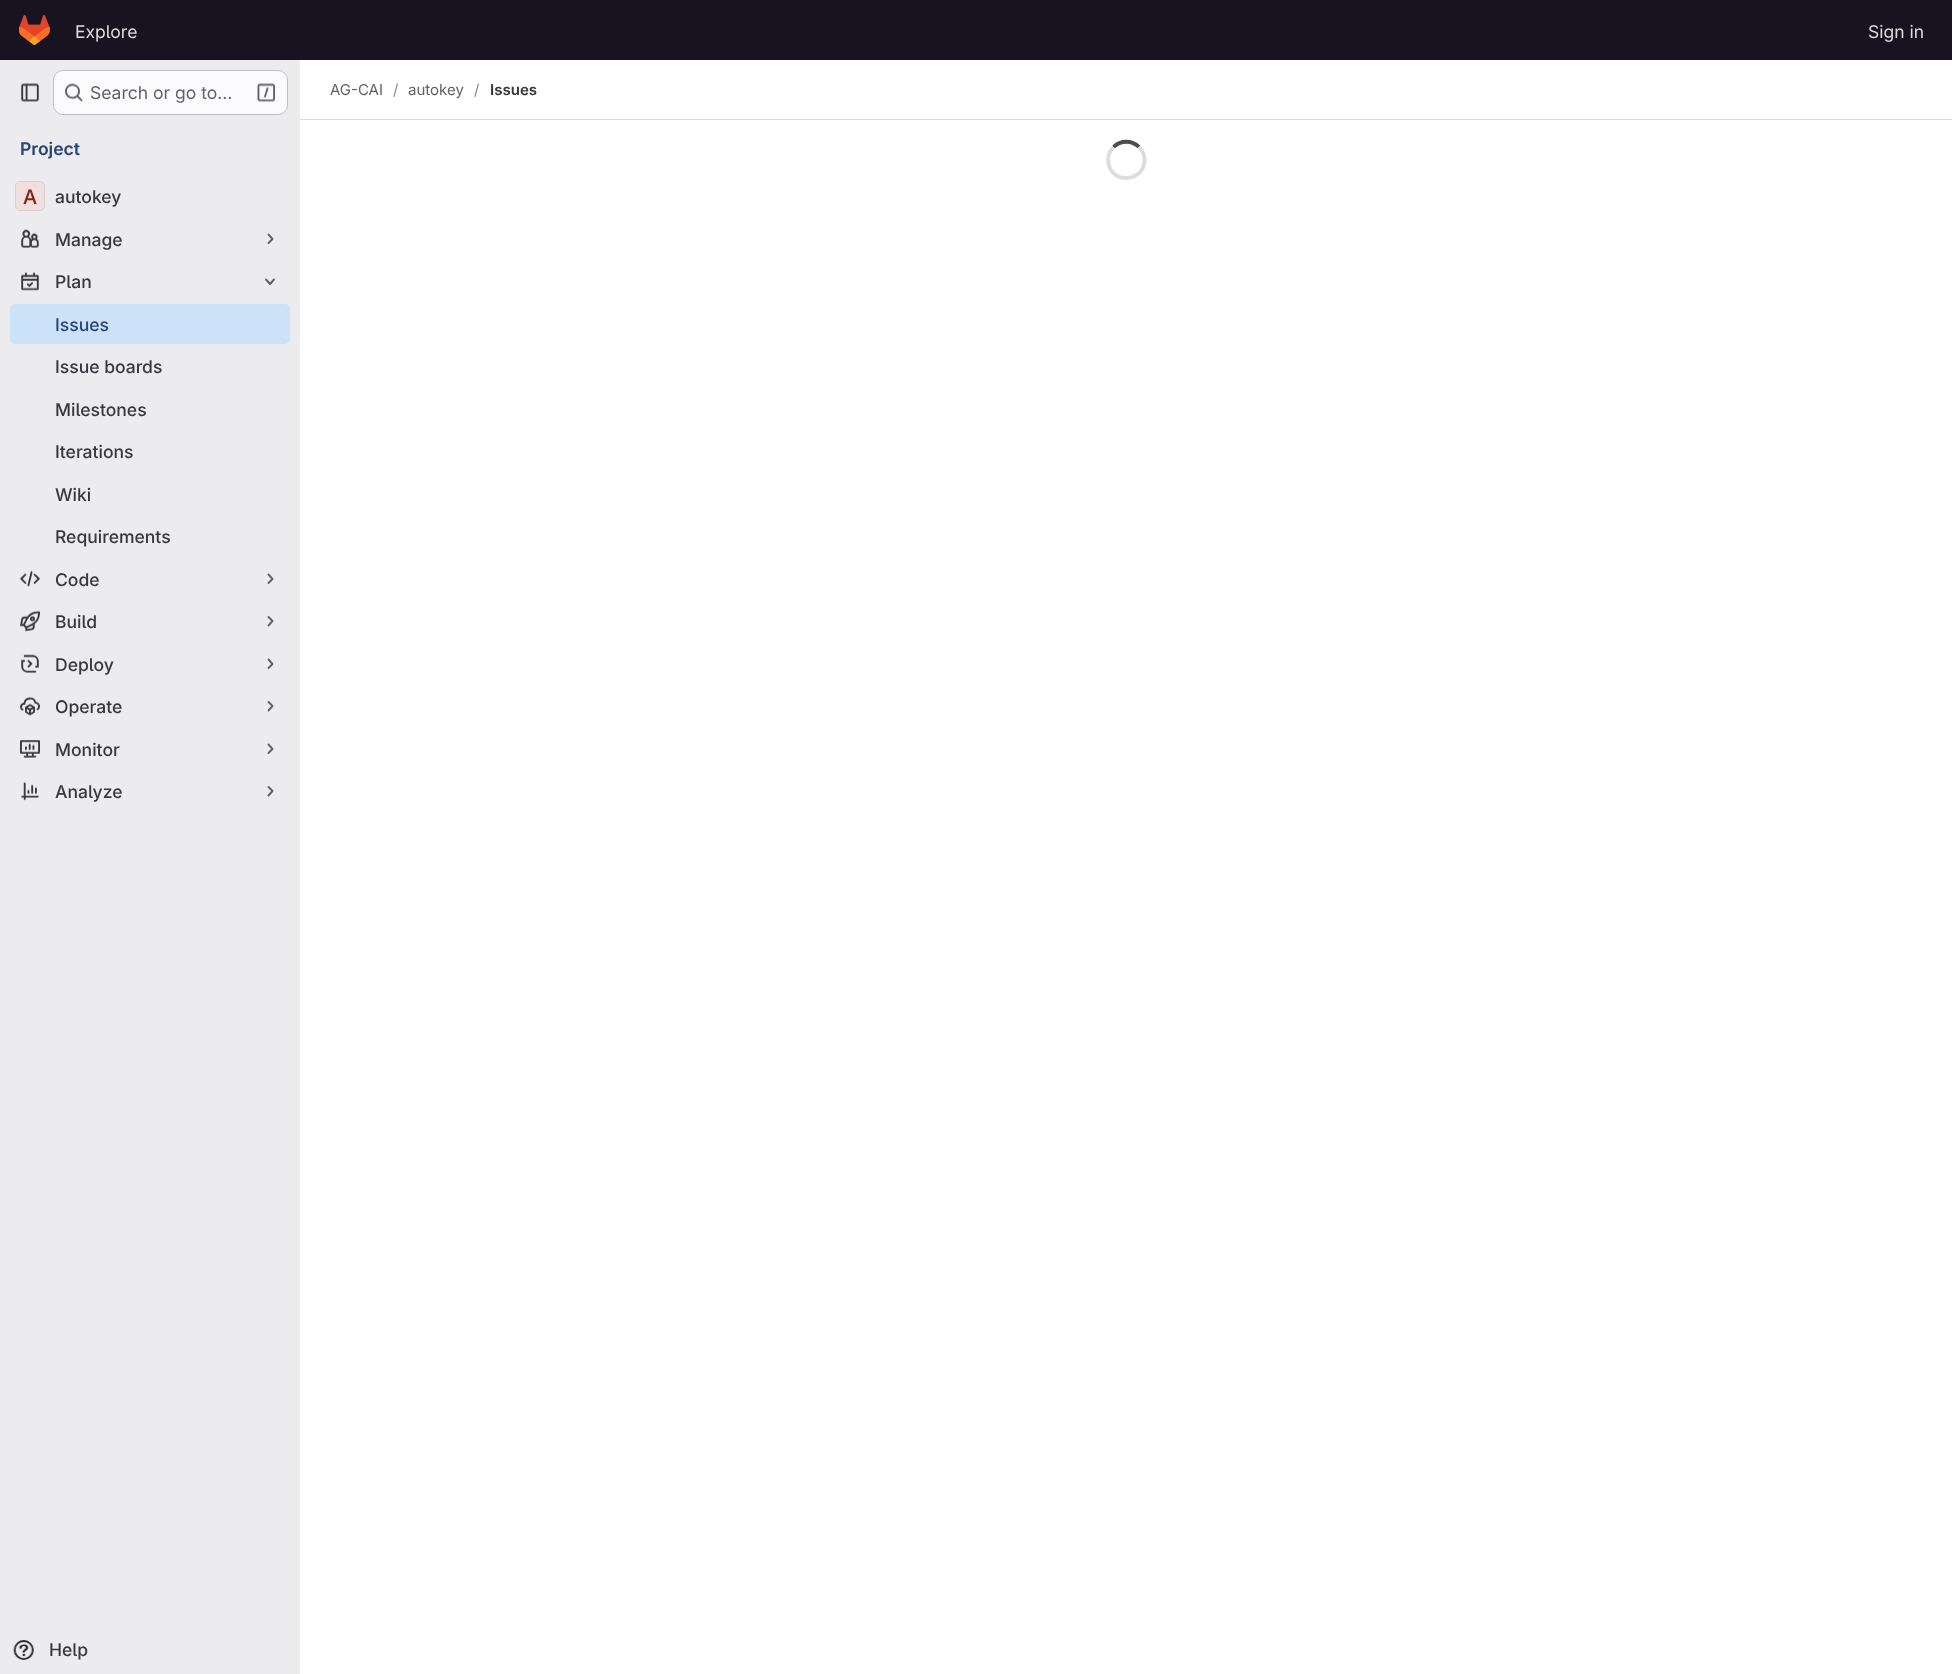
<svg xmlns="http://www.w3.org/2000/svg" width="1952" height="1674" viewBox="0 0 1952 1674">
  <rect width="100%" height="100%" fill="#ffffff"/>
  <rect x="0" y="0" width="1952" height="60" fill="#171321"/>
  <image x="19" y="15" width="31" height="30" href="img1.png"/>
  <text x="75" y="38" font-family="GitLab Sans" font-size="17.5" fill="#dcdcde">Explore</text>
  <text x="1868" y="38" font-family="GitLab Sans" font-size="17.5" fill="#dcdcde">Sign in</text>
  <rect x="0" y="60" width="300" height="1614" fill="#ececef"/>
  <image x="21" y="83" width="18" height="19" href="img2.png"/>
  <rect x="53" y="70" width="235" height="45" rx="10" fill="#fbfafd"/>
  <rect x="53.5" y="70.5" width="234" height="44" rx="9.5" fill="none" stroke="#050506" stroke-opacity="0.24"/>
  <image x="65" y="83" width="18" height="19" href="img3.png"/>
  <text x="90" y="99" font-family="GitLab Sans" font-size="17.5" fill="#626168">Search or go to…</text>
  <image x="257" y="83" width="18" height="19" href="img4.png"/>
  <text x="20" y="155" font-family="GitLab Sans" font-size="17.5" font-weight="600" fill="#284779">Project</text>
  <rect x="15" y="181" width="30" height="30" rx="5" fill="#f0dfde"/>
  <rect x="15.5" y="181.5" width="29" height="29" rx="4.5" fill="none" stroke="#050506" stroke-opacity="0.08"/>
  <text x="23" y="204" font-family="'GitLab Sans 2'" font-size="20" font-weight="500" fill="#812713">A</text>
  <text x="55" y="203" font-family="GitLab Sans" font-size="17.5" font-weight="500" fill="#3a383f">autokey</text>
  <image x="21" y="229" width="18" height="19" href="img5.png"/>
  <text x="55" y="246" font-family="GitLab Sans" font-size="17.5" font-weight="500" fill="#3a383f">Manage</text>
  <path d="M268.5 234.5L272.5 239L268.5 243" fill="none" stroke="#626168" stroke-width="1.9" stroke-linecap="round" stroke-linejoin="round"/>
  <image x="21" y="271" width="18" height="20" href="img6.png"/>
  <text x="55" y="288" font-family="GitLab Sans" font-size="17.5" font-weight="500" fill="#3a383f">Plan</text>
  <path d="M274 279.5L270 284L266 279.5" fill="none" stroke="#626168" stroke-width="1.9" stroke-linecap="round" stroke-linejoin="round"/>
  <rect x="10" y="304" width="280" height="40" rx="5" fill="#cbe2f9"/>
  <text x="55" y="331" font-family="GitLab Sans" font-size="17.5" font-weight="500" fill="#284779">Issues</text>
  <text x="55" y="373" font-family="GitLab Sans" font-size="17.5" font-weight="500" fill="#3a383f">Issue boards</text>
  <text x="55" y="416" font-family="GitLab Sans" font-size="17.5" font-weight="500" fill="#3a383f">Milestones</text>
  <text x="55" y="458" font-family="GitLab Sans" font-size="17.5" font-weight="500" fill="#3a383f">Iterations</text>
  <text x="55" y="501" font-family="GitLab Sans" font-size="17.5" font-weight="500" fill="#3a383f">Wiki</text>
  <text x="55" y="543" font-family="GitLab Sans" font-size="17.5" font-weight="500" fill="#3a383f">Requirements</text>
  <image x="20" y="570" width="20" height="17" href="img7.png"/>
  <text x="55" y="586" font-family="GitLab Sans" font-size="17.5" font-weight="500" fill="#3a383f">Code</text>
  <path d="M268.5 574.5L272.5 579L268.5 583" fill="none" stroke="#626168" stroke-width="1.9" stroke-linecap="round" stroke-linejoin="round"/>
  <image x="20" y="610" width="20" height="22" href="img8.png"/>
  <text x="55" y="628" font-family="GitLab Sans" font-size="17.5" font-weight="500" fill="#3a383f">Build</text>
  <path d="M268.5 617L272.5 621L268.5 625.5" fill="none" stroke="#626168" stroke-width="1.9" stroke-linecap="round" stroke-linejoin="round"/>
  <image x="21" y="654" width="18" height="19" href="img9.png"/>
  <text x="55" y="671" font-family="GitLab Sans" font-size="17.5" font-weight="500" fill="#3a383f">Deploy</text>
  <path d="M268.5 659.5L272.5 664L268.5 668" fill="none" stroke="#626168" stroke-width="1.9" stroke-linecap="round" stroke-linejoin="round"/>
  <image x="20" y="696" width="20" height="20" href="img10.png"/>
  <text x="55" y="713" font-family="GitLab Sans" font-size="17.5" font-weight="500" fill="#3a383f">Operate</text>
  <path d="M268.5 702L272.5 706L268.5 710.5" fill="none" stroke="#626168" stroke-width="1.9" stroke-linecap="round" stroke-linejoin="round"/>
  <image x="20" y="740" width="20" height="18" href="img11.png"/>
  <text x="55" y="756" font-family="GitLab Sans" font-size="17.5" font-weight="500" fill="#3a383f">Monitor</text>
  <path d="M268.5 744.5L272.5 749L268.5 753" fill="none" stroke="#626168" stroke-width="1.9" stroke-linecap="round" stroke-linejoin="round"/>
  <image x="21" y="781" width="18" height="20" href="img12.png"/>
  <text x="55" y="798" font-family="GitLab Sans" font-size="17.5" font-weight="500" fill="#3a383f">Analyze</text>
  <path d="M268.5 787L272.5 791L268.5 795.5" fill="none" stroke="#626168" stroke-width="1.9" stroke-linecap="round" stroke-linejoin="round"/>
  <image x="13" y="1640" width="21" height="20" href="img13.png"/>
  <text x="49" y="1656" font-family="GitLab Sans" font-size="17.5" font-weight="500" fill="#3a383f">Help</text>
  <rect x="300" y="119" width="1652" height="1" fill="#dcdcde"/>
  <text x="330" y="95" font-family="GitLab Sans" font-size="15" fill="#626168">AG-CAI</text>
  <text x="393" y="95" font-family="GitLab Sans" font-size="15" fill="#89888d">/</text>
  <text x="408" y="95" font-family="GitLab Sans" font-size="15" fill="#626168">autokey</text>
  <text x="474" y="95" font-family="GitLab Sans" font-size="15" fill="#89888d">/</text>
  <text x="490" y="95" font-family="GitLab Sans" font-size="15" font-weight="600" fill="#3a383f">Issues</text>
  <path d="M1113.5 147C1120.5 140 1132 140 1139 147" fill="none" stroke="#4c4b51" stroke-width="3.8"/>
  <path d="M1139 147C1142.5 150.5 1144.5 155 1144.5 160C1144.5 181.5 1112.5 185 1108.5 163.5C1107.5 157.5 1109 151.5 1113.5 147" fill="none" stroke="#dcdcde" stroke-width="3.8"/>
</svg>
